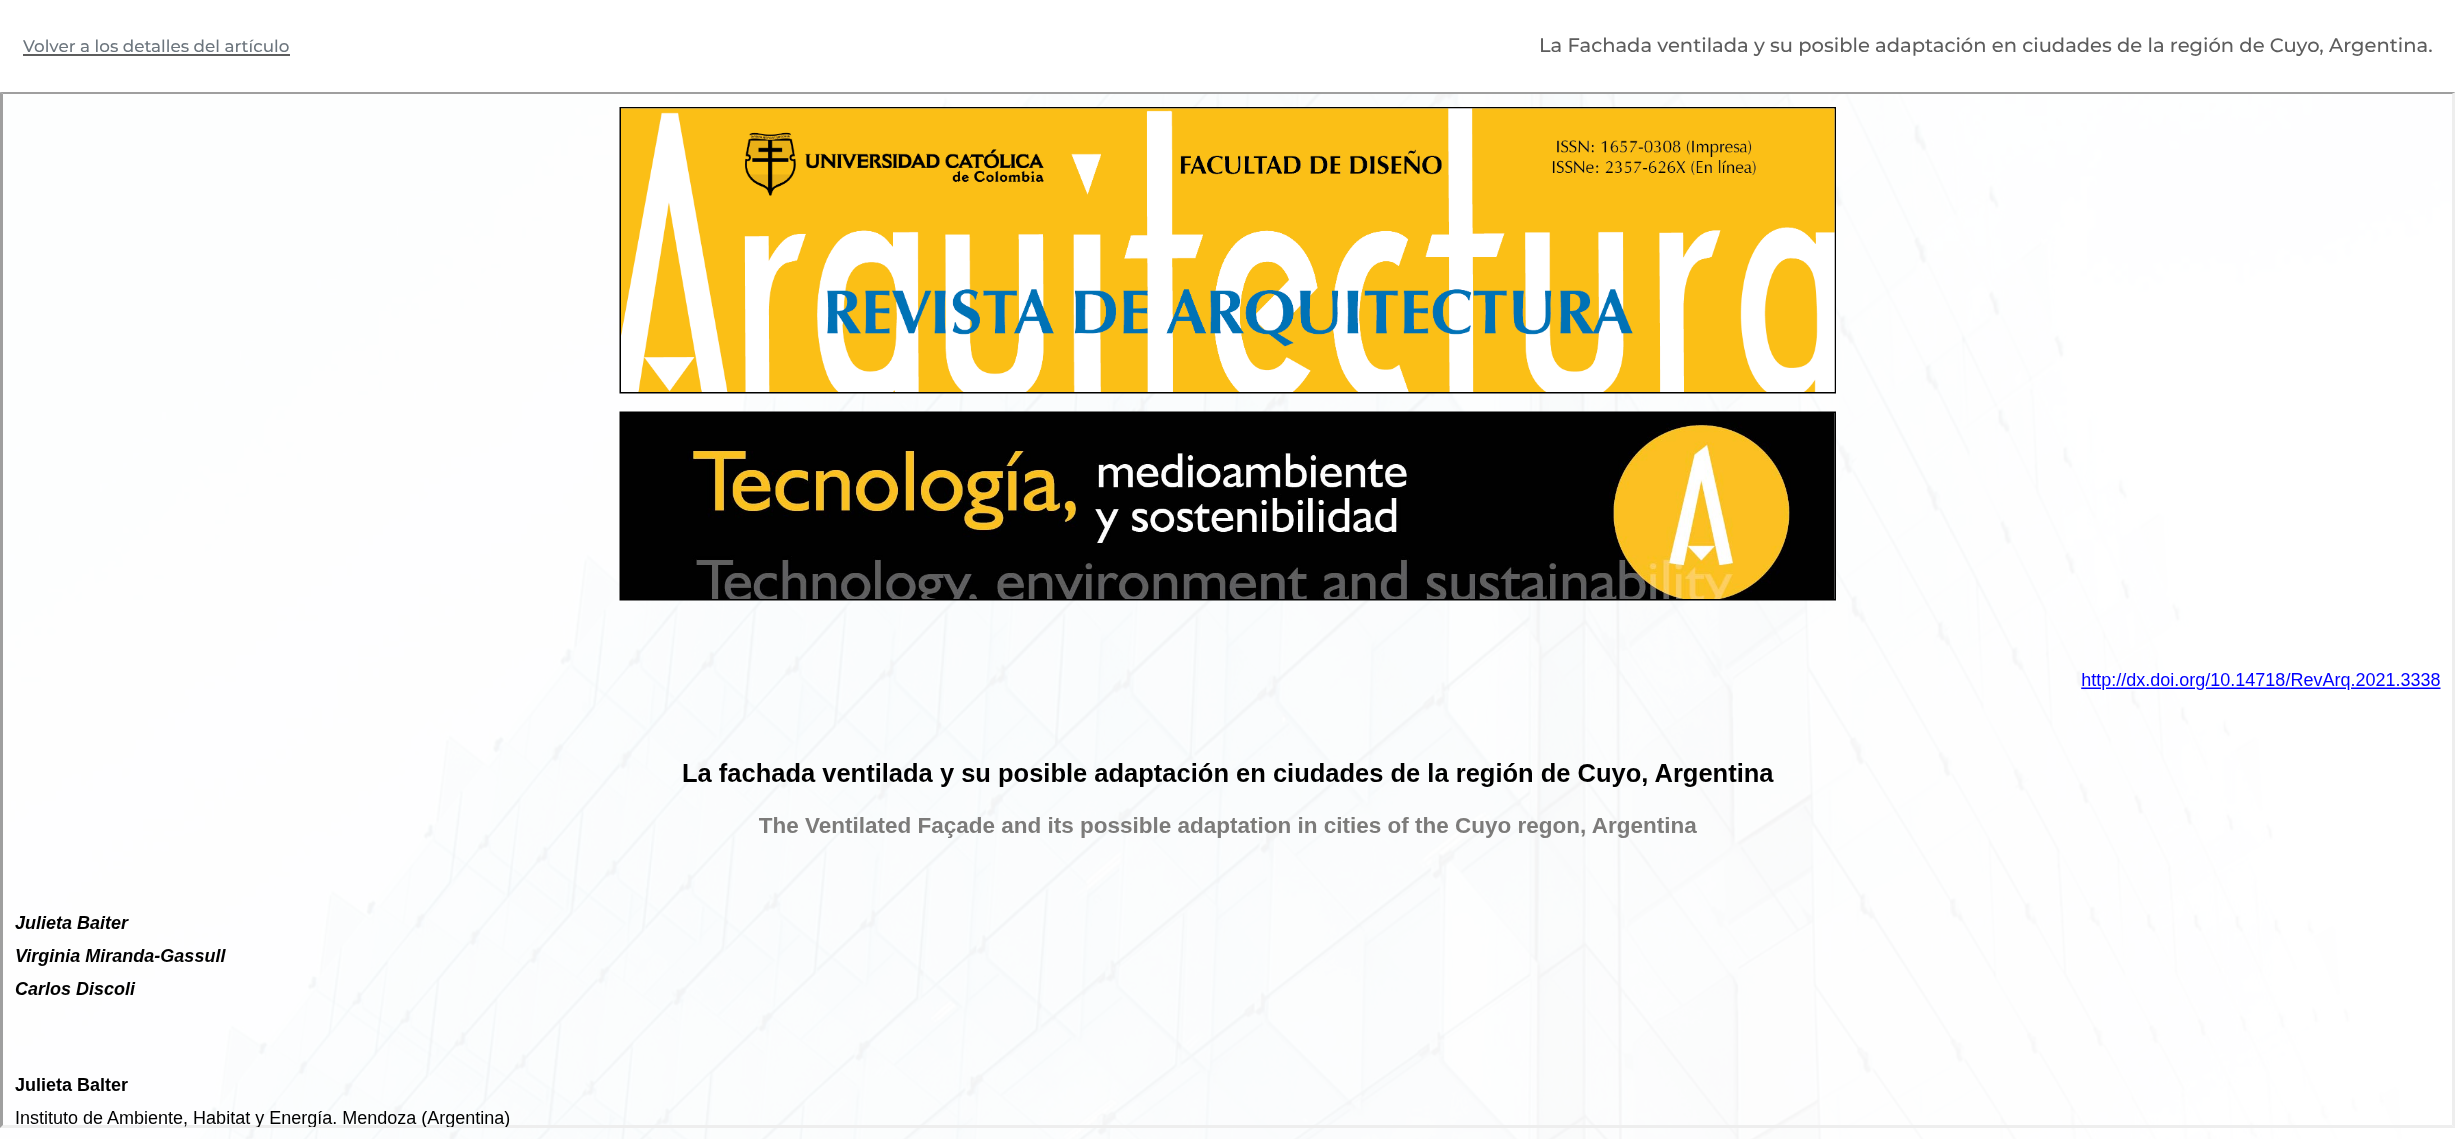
<svg xmlns="http://www.w3.org/2000/svg" width="2455" height="1139" viewBox="0 0 2455 1139">
  <rect width="100%" height="100%" fill="#ffffff"/>
  <text x="23" y="52" font-family="Montserrat" font-size="16.75" font-weight="500" fill="#6c757d">Volver a los detalles del artículo</text>
  <rect x="23" y="54" width="267" height="2" fill="#5d5d5d"/>
  <text x="1539" y="52" font-family="Montserrat" font-size="19.5" font-weight="500" fill="#5d5d5d">La Fachada ventilada y su posible adaptación en ciudades de la región de Cuyo, Argentina.</text>
  <image x="0" y="92" width="2455" height="1047" href="img2.png"/>
  <path d="M0 92H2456L2452 94H3Z" fill="#9f9f9f"/>
  <path d="M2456 92V1128L2452 1125V94Z" fill="#eeeeee"/>
  <path d="M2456 1128H0L3 1125H2452Z" fill="#eeeeee"/>
  <path d="M0 1128V92L3 94V1125Z" fill="#9f9f9f"/>
  <image x="15" y="107" width="2426" height="1020" href="img1.png"/>
</svg>
